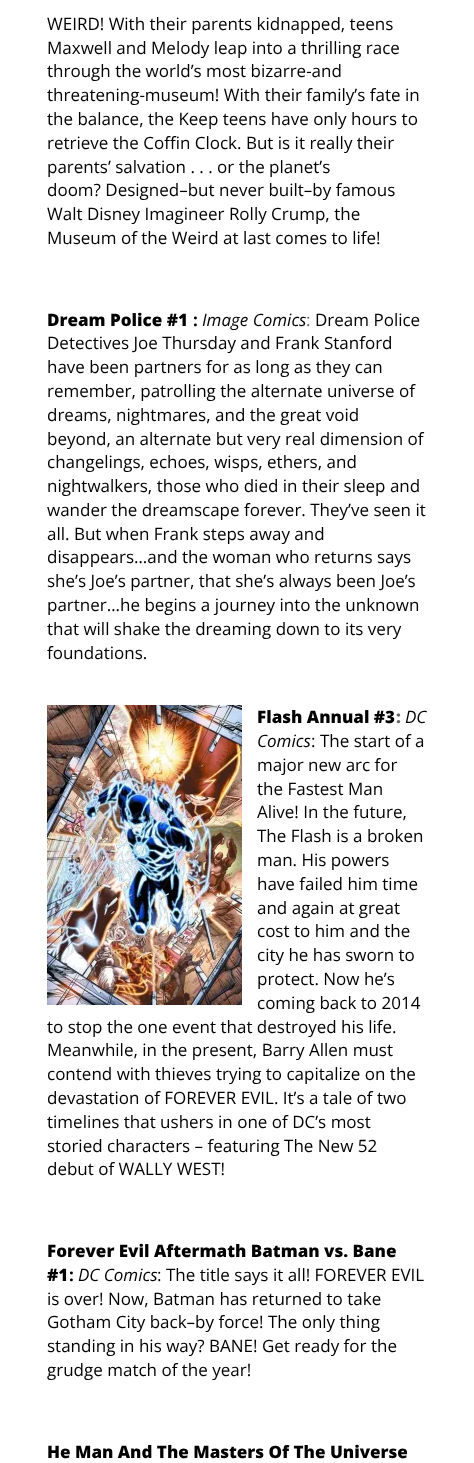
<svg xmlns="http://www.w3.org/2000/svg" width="474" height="1463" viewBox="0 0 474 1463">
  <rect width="100%" height="100%" fill="#ffffff"/>
  <text x="47" y="30" font-family="Open Sans" font-size="17" fill="#000000">WEIRD! With their parents kidnapped, teens</text>
  <text x="47" y="54" font-family="Open Sans" font-size="17" fill="#000000">Maxwell and Melody leap into a thrilling race</text>
  <text x="47" y="77" font-family="Open Sans" font-size="17" fill="#000000">through the world’s most bizarre-and</text>
  <text x="47" y="101" font-family="Open Sans" font-size="17" fill="#000000">threatening-museum! With their family’s fate in</text>
  <text x="47" y="125" font-family="Open Sans" font-size="17" fill="#000000">the balance, the Keep teens have only hours to</text>
  <text x="47" y="149" font-family="Open Sans" font-size="17" fill="#000000">retrieve the Coffin Clock. But is it really their</text>
  <text x="47" y="173" font-family="Open Sans" font-size="17" fill="#000000">parents’ salvation . . . or the planet’s</text>
  <text x="47" y="196" font-family="Open Sans" font-size="17" fill="#000000">doom? Designed–but never built–by famous</text>
  <text x="47" y="220" font-family="Open Sans" font-size="17" fill="#000000">Walt Disney Imagineer Rolly Crump, the</text>
  <text x="47" y="244" font-family="Open Sans" font-size="17" fill="#000000">Museum of the Weird at last comes to life!</text>
  <text x="47" y="326" font-family="Open Sans" font-size="17" font-weight="800" fill="#000000">Dream Police #1</text>
  <text x="193" y="326" font-family="Open Sans" font-size="17" font-weight="bold" fill="#000000">:</text>
  <text x="202" y="326" font-family="Open Sans" font-size="17" font-style="italic" fill="#000000">Image Comics</text>
  <text x="306" y="326" font-family="Open Sans" font-size="17" fill="#666666">:</text>
  <text x="315" y="326" font-family="Open Sans" font-size="17" fill="#000000">Dream Police</text>
  <text x="47" y="349" font-family="Open Sans" font-size="17" fill="#000000">Detectives Joe Thursday and Frank Stanford</text>
  <text x="47" y="373" font-family="Open Sans" font-size="17" fill="#000000">have been partners for as long as they can</text>
  <text x="47" y="397" font-family="Open Sans" font-size="17" fill="#000000">remember, patrolling the alternate universe of</text>
  <text x="47" y="421" font-family="Open Sans" font-size="17" fill="#000000">dreams, nightmares, and the great void</text>
  <text x="47" y="445" font-family="Open Sans" font-size="17" fill="#000000">beyond, an alternate but very real dimension of</text>
  <text x="47" y="468" font-family="Open Sans" font-size="17" fill="#000000">changelings, echoes, wisps, ethers, and</text>
  <text x="47" y="492" font-family="Open Sans" font-size="17" fill="#000000">nightwalkers, those who died in their sleep and</text>
  <text x="47" y="516" font-family="Open Sans" font-size="17" fill="#000000">wander the dreamscape forever. They’ve seen it</text>
  <text x="47" y="540" font-family="Open Sans" font-size="17" fill="#000000">all. But when Frank steps away and</text>
  <text x="47" y="563" font-family="Open Sans" font-size="17" fill="#000000">disappears…and the woman who returns says</text>
  <text x="47" y="587" font-family="Open Sans" font-size="17" fill="#000000">she’s Joe’s partner, that she’s always been Joe’s</text>
  <text x="47" y="611" font-family="Open Sans" font-size="17" fill="#000000">partner…he begins a journey into the unknown</text>
  <text x="47" y="635" font-family="Open Sans" font-size="17" fill="#000000">that will shake the dreaming down to its very</text>
  <text x="47" y="659" font-family="Open Sans" font-size="17" fill="#000000">foundations.</text>
  <image x="47" y="705" width="195" height="300" href="img1.png"/>
  <text x="257" y="723" font-family="Open Sans" font-size="17" font-weight="800" fill="#000000">Flash Annual #3</text>
  <text x="396" y="723" font-family="Open Sans" font-size="17" font-weight="800" fill="#666666">:</text>
  <text x="405" y="723" font-family="Open Sans" font-size="17" font-style="italic" fill="#000000">DC</text>
  <text x="257" y="747" font-family="Open Sans" font-size="17" font-style="italic" fill="#000000">Comics</text>
  <text x="311" y="747" font-family="Open Sans" font-size="17" fill="#000000">: The start of a</text>
  <text x="257" y="771" font-family="Open Sans" font-size="17" fill="#000000">major new arc for</text>
  <text x="257" y="795" font-family="Open Sans" font-size="17" fill="#000000">the Fastest Man</text>
  <text x="257" y="818" font-family="Open Sans" font-size="17" fill="#000000">Alive! In the future,</text>
  <text x="257" y="842" font-family="Open Sans" font-size="17" fill="#000000">The Flash is a broken</text>
  <text x="257" y="866" font-family="Open Sans" font-size="17" fill="#000000">man. His powers</text>
  <text x="257" y="890" font-family="Open Sans" font-size="17" fill="#000000">have failed him time</text>
  <text x="257" y="914" font-family="Open Sans" font-size="17" fill="#000000">and again at great</text>
  <text x="257" y="937" font-family="Open Sans" font-size="17" fill="#000000">cost to him and the</text>
  <text x="257" y="961" font-family="Open Sans" font-size="17" fill="#000000">city he has sworn to</text>
  <text x="257" y="985" font-family="Open Sans" font-size="17" fill="#000000">protect. Now he’s</text>
  <text x="257" y="1009" font-family="Open Sans" font-size="17" fill="#000000">coming back to 2014</text>
  <text x="47" y="1033" font-family="Open Sans" font-size="17" fill="#000000">to stop the one event that destroyed his life.</text>
  <text x="47" y="1056" font-family="Open Sans" font-size="17" fill="#000000">Meanwhile, in the present, Barry Allen must</text>
  <text x="47" y="1080" font-family="Open Sans" font-size="17" fill="#000000">contend with thieves trying to capitalize on the</text>
  <text x="47" y="1104" font-family="Open Sans" font-size="17" fill="#000000">devastation of FOREVER EVIL. It’s a tale of two</text>
  <text x="47" y="1128" font-family="Open Sans" font-size="17" fill="#000000">timelines that ushers in one of DC’s most</text>
  <text x="47" y="1152" font-family="Open Sans" font-size="17" fill="#000000">storied characters – featuring The New 52</text>
  <text x="47" y="1175" font-family="Open Sans" font-size="17" fill="#000000">debut of WALLY WEST!</text>
  <text x="47" y="1257" font-family="Open Sans" font-size="17" font-weight="800" fill="#000000">Forever Evil Aftermath Batman vs. Bane</text>
  <text x="47" y="1281" font-family="Open Sans" font-size="17" font-weight="800" fill="#000000">#1</text>
  <text x="69" y="1281" font-family="Open Sans" font-size="17" font-weight="bold" fill="#000000">:</text>
  <text x="78" y="1281" font-family="Open Sans" font-size="17" font-style="italic" fill="#000000">DC Comics</text>
  <text x="157" y="1281" font-family="Open Sans" font-size="17" fill="#000000">: The title says it all! FOREVER EVIL</text>
  <text x="47" y="1305" font-family="Open Sans" font-size="17" fill="#000000">is over! Now, Batman has returned to take</text>
  <text x="47" y="1328" font-family="Open Sans" font-size="17" fill="#000000">Gotham City back–by force! The only thing</text>
  <text x="47" y="1352" font-family="Open Sans" font-size="17" fill="#000000">standing in his way? BANE! Get ready for the</text>
  <text x="47" y="1376" font-family="Open Sans" font-size="17" fill="#000000">grudge match of the year!</text>
  <text x="47" y="1458" font-family="Open Sans" font-size="17" font-weight="800" fill="#000000">He Man And The Masters Of The Universe</text>
</svg>
